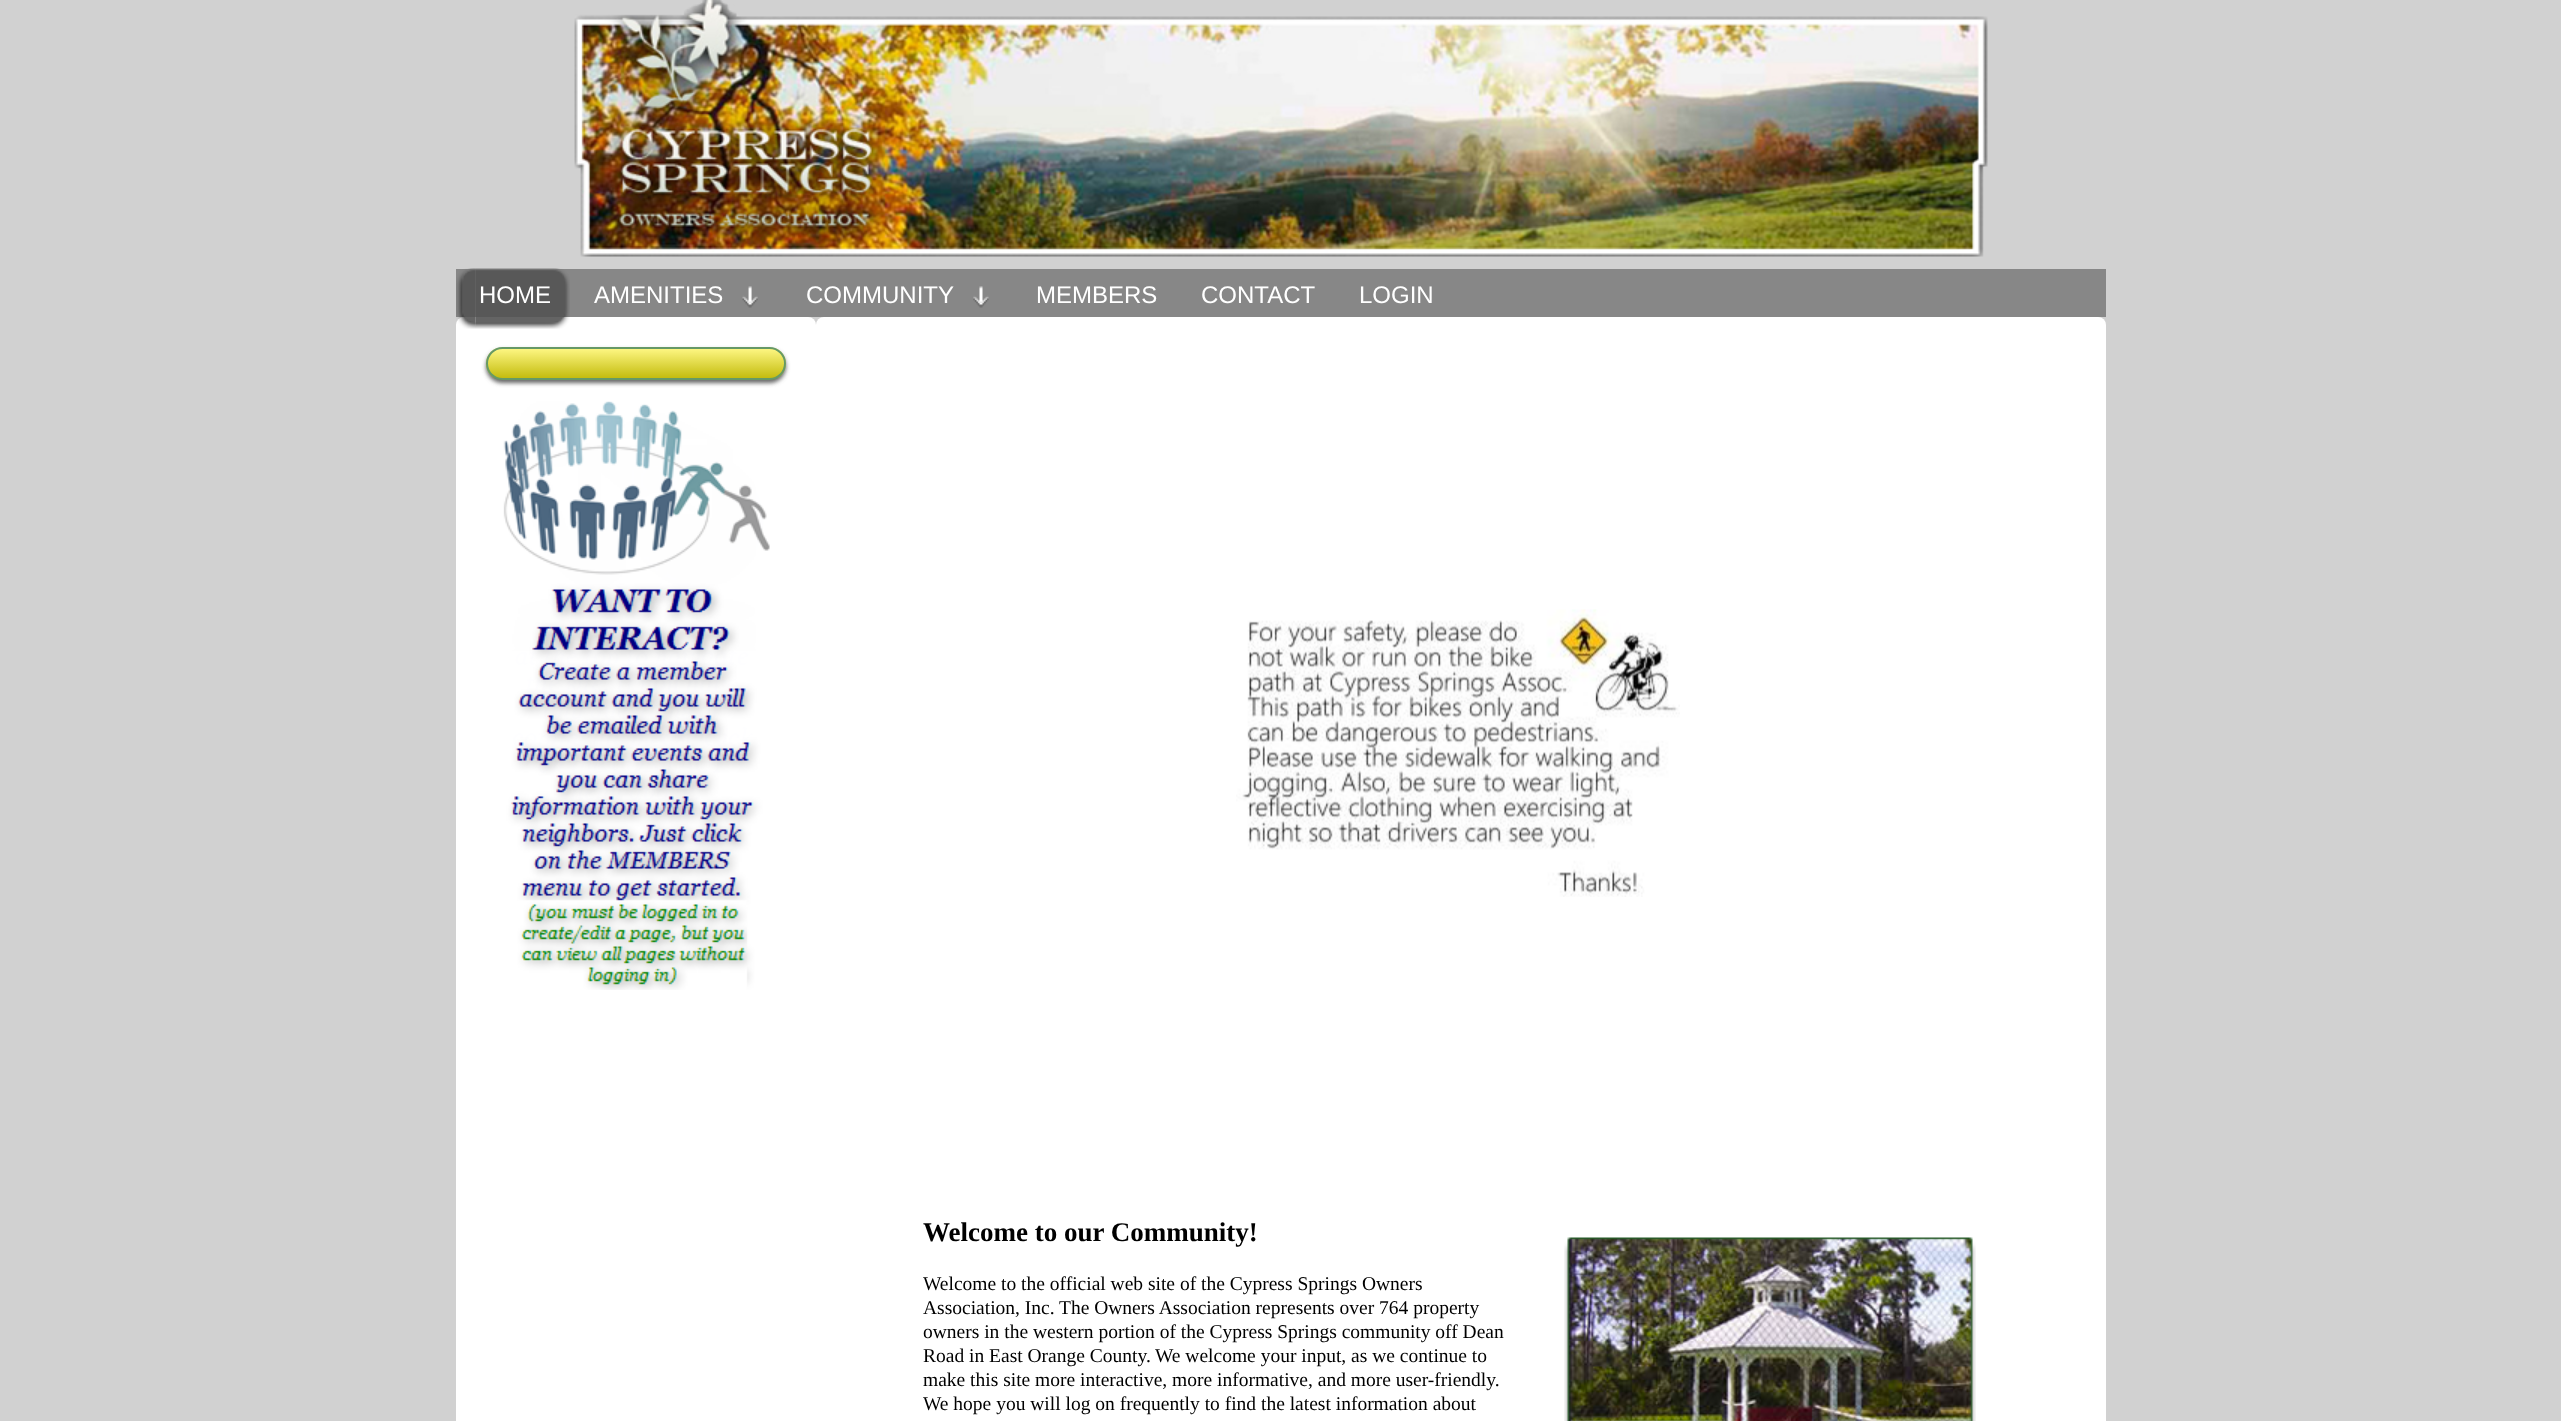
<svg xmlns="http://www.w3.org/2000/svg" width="2561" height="1421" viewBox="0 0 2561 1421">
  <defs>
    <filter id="blur1" x="-50%" y="-200%" width="200%" height="500%"><feGaussianBlur stdDeviation="2"/></filter>
    <clipPath id="clip1"><rect x="486" y="347" width="300" height="33" rx="16.5"/></clipPath>
    <linearGradient id="g1" gradientUnits="userSpaceOnUse" x1="636" y1="348" x2="636" y2="378"><stop offset="0" stop-color="#fff885"/><stop offset="1" stop-color="#c4bc0e"/></linearGradient>
  </defs>
  <rect width="100%" height="100%" fill="#d1d1d1"/>
  <image x="574" y="0" width="1414" height="257" href="img1.png"/>
  <rect x="456" y="269" width="1650" height="48" fill="#878787"/>
  <rect x="456" y="317" width="360" height="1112" rx="8" fill="#ffffff"/>
  <image x="456" y="268" width="20" height="61" href="img2.png"/>
  <image x="475" y="268" width="95" height="61" href="img3.png"/>
  <text x="479" y="303" font-family="Liberation Sans" font-size="24" fill="#ffffff">HOME</text>
  <image x="742" y="286" width="16" height="22" href="img4.png"/>
  <text x="594" y="303" font-family="Liberation Sans" font-size="24" fill="#ffffff">AMENITIES</text>
  <image x="973" y="286" width="16" height="22" href="img5.png"/>
  <text x="806" y="303" font-family="Liberation Sans" font-size="24" fill="#ffffff">COMMUNITY</text>
  <text x="1036" y="303" font-family="Liberation Sans" font-size="24" fill="#ffffff">MEMBERS</text>
  <text x="1201" y="303" font-family="Liberation Sans" font-size="24" fill="#ffffff">CONTACT</text>
  <text x="1359" y="303" font-family="Liberation Sans" font-size="24" fill="#ffffff">LOGIN</text>
  <rect x="486" y="350" width="300" height="33" rx="16.5" fill="#666666" filter="url(#blur1)"/>
  <g clip-path="url(#clip1)">
    <rect x="486" y="348" width="300" height="30" fill="url(#g1)"/>
  </g>
  <rect x="487" y="348" width="298" height="31" rx="15.5" fill="none" stroke="#669966" stroke-width="2"/>
  <image x="503" y="401" width="267" height="589" href="img6.png"/>
  <rect x="816" y="317" width="1290" height="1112" rx="8" fill="#ffffff"/>
  <image x="1236" y="609" width="444" height="288" href="img7.png"/>
  <text x="923" y="1241" font-family="Liberation Serif" font-size="27" font-weight="bold" fill="#000000">Welcome to our Community!</text>
  <text x="923" y="1290" font-family="Liberation Serif" font-size="19.5" fill="#000000">Welcome to the official web site of the Cypress Springs Owners</text>
  <text x="923" y="1314" font-family="Liberation Serif" font-size="19.5" fill="#000000">Association, Inc.</text>
  <text x="1059" y="1314" font-family="Liberation Serif" font-size="19.5" fill="#000000">The Owners Association represents over 764 property</text>
  <text x="923" y="1338" font-family="Liberation Serif" font-size="19.5" fill="#000000">owners in the western portion of the Cypress Springs community off Dean</text>
  <text x="923" y="1362" font-family="Liberation Serif" font-size="19.5" fill="#000000">Road in East Orange County.</text>
  <text x="1155" y="1362" font-family="Liberation Serif" font-size="19.5" fill="#000000">We welcome your input, as we continue to</text>
  <text x="923" y="1386" font-family="Liberation Serif" font-size="19.5" fill="#000000">make this site more interactive, more informative, and more user-friendly.</text>
  <text x="923" y="1410" font-family="Liberation Serif" font-size="19.5" fill="#000000">We hope you will log on frequently to find the latest information about</text>
  <image x="1564" y="1237" width="412" height="184" href="img8.png"/>
</svg>
